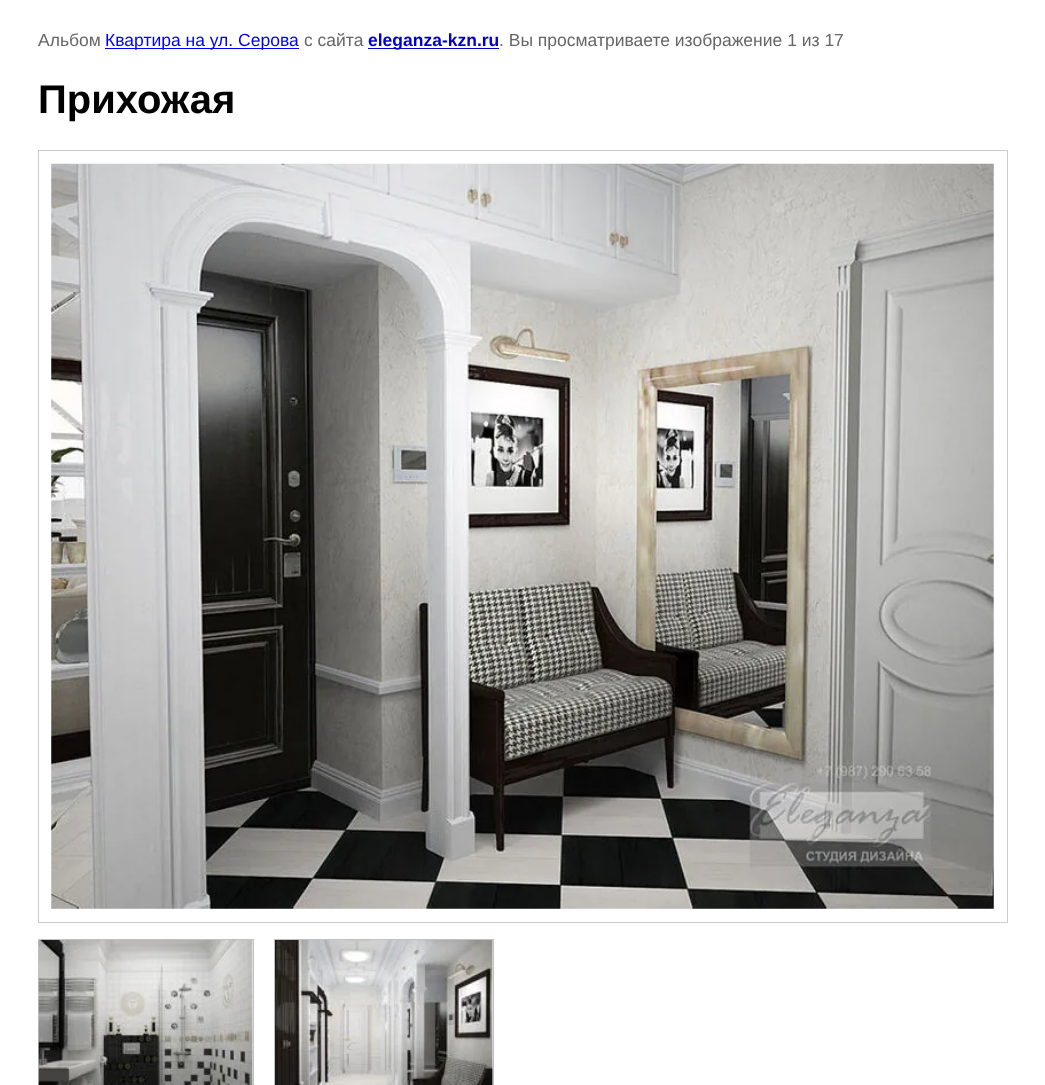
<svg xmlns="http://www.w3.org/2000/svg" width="1045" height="1085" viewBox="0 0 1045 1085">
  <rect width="100%" height="100%" fill="#ffffff"/>
  <text x="38" y="46" font-family="Liberation Sans" font-size="17.5" fill="#666666">Альбом</text>
  <rect x="105" y="48" width="194" height="1" fill="#0000ff"/>
  <text x="105" y="46" font-family="Liberation Sans" font-size="17.5" fill="#0000ff">Квартира на ул. Серова</text>
  <text x="304" y="46" font-family="Liberation Sans" font-size="17.5" fill="#666666">с сайта</text>
  <rect x="368" y="48" width="131" height="1" fill="#0000cc"/>
  <text x="368" y="46" font-family="Liberation Sans" font-size="17.5" font-weight="bold" fill="#0000cc">eleganza-kzn.ru</text>
  <text x="499" y="46" font-family="Liberation Sans" font-size="17.5" fill="#666666">. Вы просматриваете изображение 1 из 17</text>
  <text x="38" y="113" font-family="Liberation Sans" font-size="40" font-weight="bold" fill="#000000">Прихожая</text>
  <rect x="38.5" y="150.5" width="969" height="772" fill="none" stroke="#cccccc"/>
  <image x="51" y="163" width="943" height="746" href="img1.png"/>
  <rect x="38.5" y="939.5" width="215" height="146" fill="none" stroke="#c0c0c0"/>
  <image x="38" y="940" width="215" height="145" href="img2.png"/>
  <rect x="274.5" y="939.5" width="219" height="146" fill="none" stroke="#c0c0c0"/>
  <image x="275" y="940" width="218" height="145" href="img3.png"/>
</svg>
